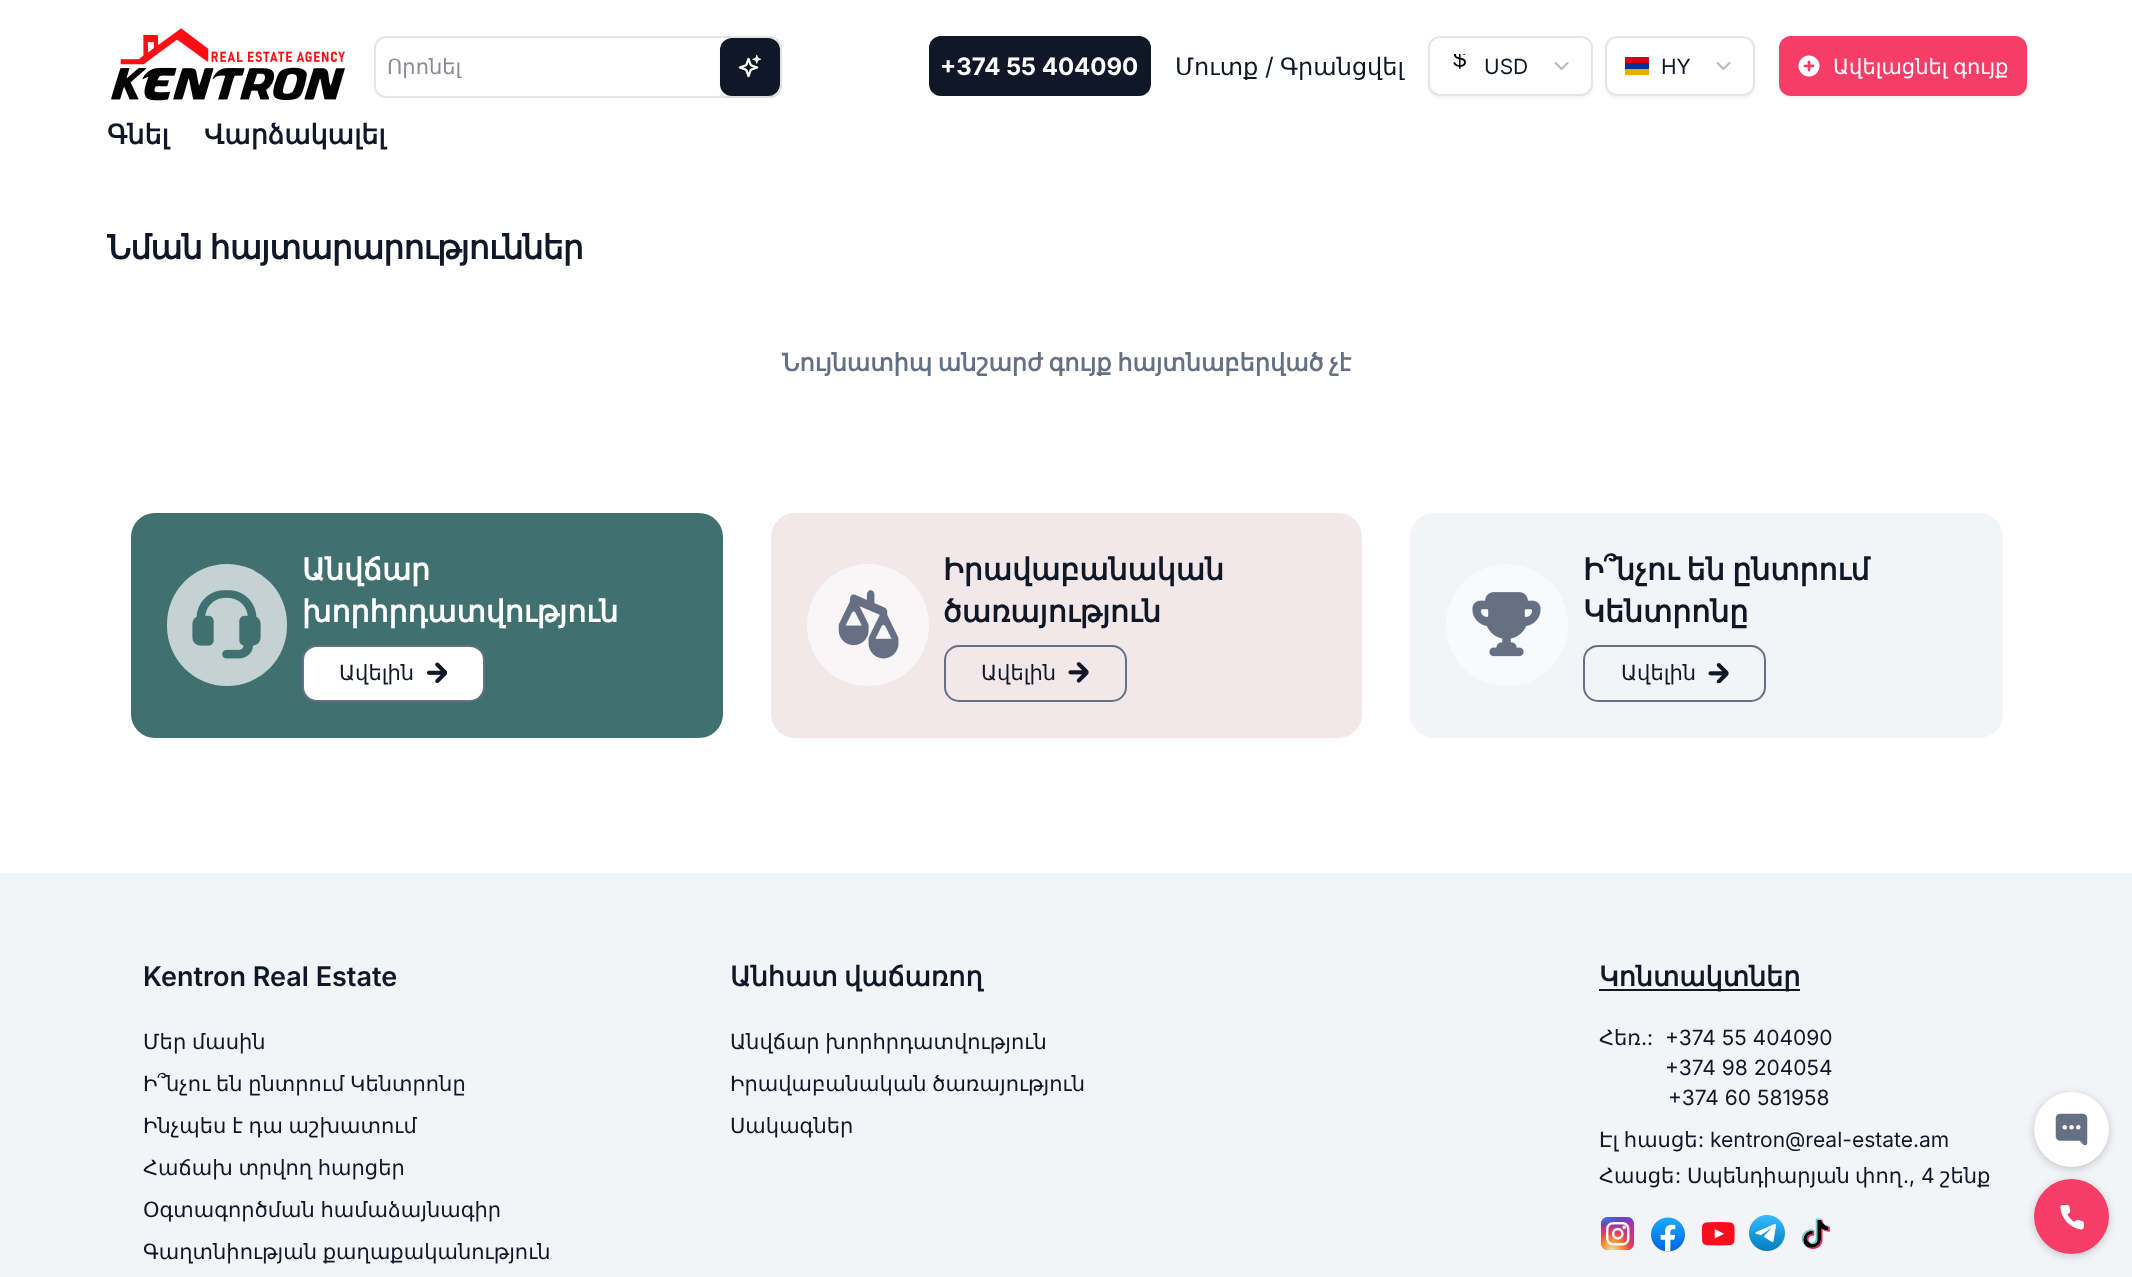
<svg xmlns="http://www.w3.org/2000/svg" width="2132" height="1277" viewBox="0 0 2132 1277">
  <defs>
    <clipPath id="clip1"><rect x="387" y="53" width="321" height="25"/></clipPath>
    <filter id="blur1" x="-50%" y="-200%" width="200%" height="500%"><feGaussianBlur stdDeviation="1.5"/></filter>
    <clipPath id="clip2"><rect x="1448" y="54" width="24" height="24"/></clipPath>
    <filter id="blur2" x="-50%" y="-200%" width="200%" height="500%"><feGaussianBlur stdDeviation="4.5"/></filter>
  </defs>
  <rect width="100%" height="100%" fill="#ffffff"/>
  <image x="111" y="28" width="234" height="73" href="img1.png"/>
  <rect x="375" y="37" width="406" height="60" rx="11" fill="none" stroke="#e5e5e5" stroke-width="2"/>
  <g clip-path="url(#clip1)">
    <text x="387" y="74" font-family="DejaVu Sans" font-size="21" fill="#888c94">Որոնել</text>
  </g>
  <rect x="720" y="39" width="60" height="59" rx="12" fill="#000000" fill-opacity="0.05" filter="url(#blur1)"/>
  <rect x="720" y="38" width="60" height="58" rx="12" fill="#101828"/>
  <image x="738" y="54" width="24" height="24" href="img2.png"/>
  <rect x="929" y="36" width="222" height="60" rx="12" fill="#101828"/>
  <text x="940" y="75" font-family="Inter" font-size="24" font-weight="bold" fill="#ffffff">+374 55 404090</text>
  <text x="1175" y="75" font-family="DejaVu Sans" font-size="24" fill="#101828">Մուտք</text>
  <text x="1265" y="75" font-family="Inter" font-size="24" fill="#101828">/</text>
  <text x="1280" y="75" font-family="DejaVu Sans" font-size="24" fill="#101828">Գրանցվել</text>
  <rect x="1428" y="38" width="165" height="60" rx="12" fill="#000000" fill-opacity="0.05" filter="url(#blur1)"/>
  <rect x="1429" y="37" width="163" height="58" rx="11" fill="#ffffff" stroke="#e5e5e5" stroke-width="2"/>
  <g clip-path="url(#clip2)">
    <text x="1453" y="67" font-family="Liberation Sans" font-size="24" fill="#000000">$</text>
  </g>
  <text x="1484" y="74" font-family="Inter" font-size="21" fill="#101828">USD</text>
  <path d="M1555.5 63L1561.5 69L1567.5 63" fill="none" stroke="#b9b9b9" stroke-width="2" stroke-linecap="round" stroke-linejoin="round"/>
  <rect x="1605" y="38" width="150" height="60" rx="12" fill="#000000" fill-opacity="0.05" filter="url(#blur1)"/>
  <rect x="1606" y="37" width="148" height="58" rx="11" fill="#ffffff" stroke="#e5e5e5" stroke-width="2"/>
  <rect x="1625" y="57" width="24" height="6" fill="#d90012"/>
  <rect x="1625" y="63" width="24" height="6" fill="#0033a0"/>
  <rect x="1625" y="69" width="24" height="6" fill="#f2a800"/>
  <text x="1661" y="74" font-family="Inter" font-size="21" fill="#101828">HY</text>
  <path d="M1717.5 63L1723.5 69L1729.5 63" fill="none" stroke="#b9b9b9" stroke-width="2" stroke-linecap="round" stroke-linejoin="round"/>
  <rect x="1779" y="38" width="248" height="60" rx="12" fill="#000000" fill-opacity="0.05" filter="url(#blur1)"/>
  <rect x="1779" y="36" width="248" height="60" rx="12" fill="#f63d68"/>
  <image x="1798" y="55" width="22" height="22" href="img3.png"/>
  <text x="1833" y="74" word-spacing="-1" font-family="DejaVu Sans" font-size="21" fill="#ffffff">Ավելացնել գույք</text>
  <text x="107" y="144" font-family="DejaVu Sans" font-size="27" font-weight="bold" fill="#101828">Գնել</text>
  <text x="204" y="144" font-family="DejaVu Sans" font-size="27" font-weight="bold" fill="#101828">Վարձակալել</text>
  <text x="107" y="259" word-spacing="-2" font-family="DejaVu Sans" font-size="33" font-weight="bold" letter-spacing="-0.8" fill="#101828">Նման հայտարարություններ</text>
  <text x="782" y="371" word-spacing="-2" font-family="DejaVu Sans" font-size="24" font-weight="bold" fill="#667085">Նույնատիպ անշարժ գույք հայտնաբերված չէ</text>
  <rect x="131" y="513" width="592" height="225" rx="24" fill="#407070"/>
  <rect x="167" y="564" width="120" height="122" rx="60" fill="#c4d2d3"/>
  <image x="192" y="590" width="69" height="69" href="img4.png"/>
  <text x="302" y="580" font-family="DejaVu Sans" font-size="30" font-weight="bold" fill="#ffffff">Անվճար</text>
  <text x="302" y="622" font-family="DejaVu Sans" font-size="30" font-weight="bold" fill="#ffffff">խորհրդատվություն</text>
  <rect x="303" y="646" width="181" height="55" rx="14" fill="#ffffff" stroke="#667085" stroke-width="2"/>
  <text x="339" y="680" font-family="DejaVu Sans" font-size="21" fill="#101828">Ավելին</text>
  <image x="427" y="662" width="21" height="21" href="img5.png"/>
  <rect x="771" y="513" width="591" height="225" rx="24" fill="#f2e8e9"/>
  <circle cx="868" cy="625" r="61" fill="#f9f6f7"/>
  <image x="838" y="590" width="61" height="69" href="img6.png"/>
  <text x="943" y="580" font-family="DejaVu Sans" font-size="30" font-weight="bold" fill="#101828">Իրավաբանական</text>
  <text x="943" y="622" font-family="DejaVu Sans" font-size="30" font-weight="bold" fill="#101828">ծառայություն</text>
  <rect x="945" y="646" width="181" height="55" rx="14" fill="none" stroke="#667085" stroke-width="2"/>
  <text x="981" y="680" font-family="DejaVu Sans" font-size="21" fill="#101828">Ավելին</text>
  <image x="1068" y="662" width="21" height="21" href="img7.png"/>
  <rect x="1410" y="513" width="593" height="225" rx="24" fill="#f2f4f7"/>
  <circle cx="1507" cy="625" r="61" fill="#f9fafb"/>
  <image x="1472" y="592" width="69" height="65" href="img8.png"/>
  <text x="1583" y="580" word-spacing="-2" font-family="DejaVu Sans" font-size="30" font-weight="bold" fill="#101828">Ի՞նչու են ընտրում</text>
  <text x="1583" y="622" font-family="DejaVu Sans" font-size="30" font-weight="bold" fill="#101828">Կենտրոնը</text>
  <rect x="1584" y="646" width="181" height="55" rx="14" fill="none" stroke="#667085" stroke-width="2"/>
  <text x="1621" y="680" font-family="DejaVu Sans" font-size="21" fill="#101828">Ավելին</text>
  <image x="1708" y="663" width="21" height="21" href="img9.png"/>
  <rect x="0" y="873" width="2132" height="404" fill="#f2f4f7"/>
  <text x="143" y="986" font-family="Inter" font-size="27" font-weight="600" fill="#101828">Kentron Real Estate</text>
  <text x="143" y="1049" word-spacing="-1" font-family="DejaVu Sans" font-size="21" fill="#101828">Մեր մասին</text>
  <text x="143" y="1091" word-spacing="-1" font-family="DejaVu Sans" font-size="21" fill="#101828">Ի՞նչու են ընտրում Կենտրոնը</text>
  <text x="143" y="1133" word-spacing="-1" font-family="DejaVu Sans" font-size="21" fill="#101828">Ինչպես է դա աշխատում</text>
  <text x="143" y="1175" word-spacing="-1" font-family="DejaVu Sans" font-size="21" fill="#101828">Հաճախ տրվող հարցեր</text>
  <text x="143" y="1217" word-spacing="-1" font-family="DejaVu Sans" font-size="21" fill="#101828">Օգտագործման համաձայնագիր</text>
  <text x="143" y="1259" word-spacing="-1" font-family="DejaVu Sans" font-size="21" fill="#101828">Գաղտնիության քաղաքականություն</text>
  <text x="730" y="986" word-spacing="-2" font-family="DejaVu Sans" font-size="27" font-weight="bold" fill="#101828">Անհատ վաճառող</text>
  <text x="730" y="1049" word-spacing="-1" font-family="DejaVu Sans" font-size="21" fill="#101828">Անվճար խորհրդատվություն</text>
  <text x="730" y="1091" word-spacing="-1" font-family="DejaVu Sans" font-size="21" fill="#101828">Իրավաբանական ծառայություն</text>
  <text x="730" y="1133" font-family="DejaVu Sans" font-size="21" fill="#101828">Սակագներ</text>
  <rect x="1599" y="989" width="201" height="2" fill="#101828"/>
  <text x="1599" y="986" font-family="DejaVu Sans" font-size="27" font-weight="bold" fill="#101828">Կոնտակտներ</text>
  <text x="1599" y="1045" font-family="DejaVu Sans" font-size="21" fill="#101828">Հեռ</text>
  <text x="1641" y="1045" font-family="Inter" font-size="21" fill="#101828">.:</text>
  <text x="1665" y="1045" font-family="Inter" font-size="21" fill="#101828">+374 55 404090</text>
  <text x="1665" y="1075" font-family="Inter" font-size="21" fill="#101828">+374 98 204054</text>
  <text x="1668" y="1105" font-family="Inter" font-size="21" fill="#101828">+374 60 581958</text>
  <text x="1599" y="1147" word-spacing="-1" font-family="DejaVu Sans" font-size="21" fill="#101828">Էլ հասցե</text>
  <text x="1698" y="1147" font-family="Inter" font-size="21" fill="#101828">: kentron@real-estate.am</text>
  <text x="1599" y="1183" font-family="DejaVu Sans" font-size="21" fill="#101828">Հասցե</text>
  <text x="1675" y="1183" font-family="Inter" font-size="21" fill="#101828">:</text>
  <text x="1687" y="1183" font-family="DejaVu Sans" font-size="21" fill="#101828">Սպենդիարյան</text>
  <text x="1855" y="1183" font-family="DejaVu Sans" font-size="21" fill="#101828">փող</text>
  <text x="1903" y="1183" font-family="Inter" font-size="21" fill="#101828">., 4</text>
  <text x="1940" y="1183" font-family="DejaVu Sans" font-size="21" fill="#101828">շենք</text>
  <image x="1601" y="1217" width="33" height="33" href="img10.png"/>
  <image x="1651" y="1217" width="34" height="35" href="img11.png"/>
  <image x="1701" y="1222" width="34" height="24" href="img12.png"/>
  <image x="1749" y="1215" width="36" height="36" href="img13.png"/>
  <image x="1801" y="1218" width="29" height="31" href="img14.png"/>
  <rect x="2034" y="1094" width="75" height="75" rx="37.5" fill="#101828" fill-opacity="0.2" filter="url(#blur2)"/>
  <circle cx="2071.5" cy="1129.5" r="37.5" fill="#ffffff"/>
  <image x="2055" y="1113" width="33" height="33" href="img15.png"/>
  <rect x="2034" y="1181" width="75" height="75" rx="37.5" fill="#101828" fill-opacity="0.2" filter="url(#blur2)"/>
  <circle cx="2071.5" cy="1216.5" r="37.5" fill="#f63d68"/>
  <image x="2060" y="1205" width="24" height="25" href="img16.png"/>
</svg>
